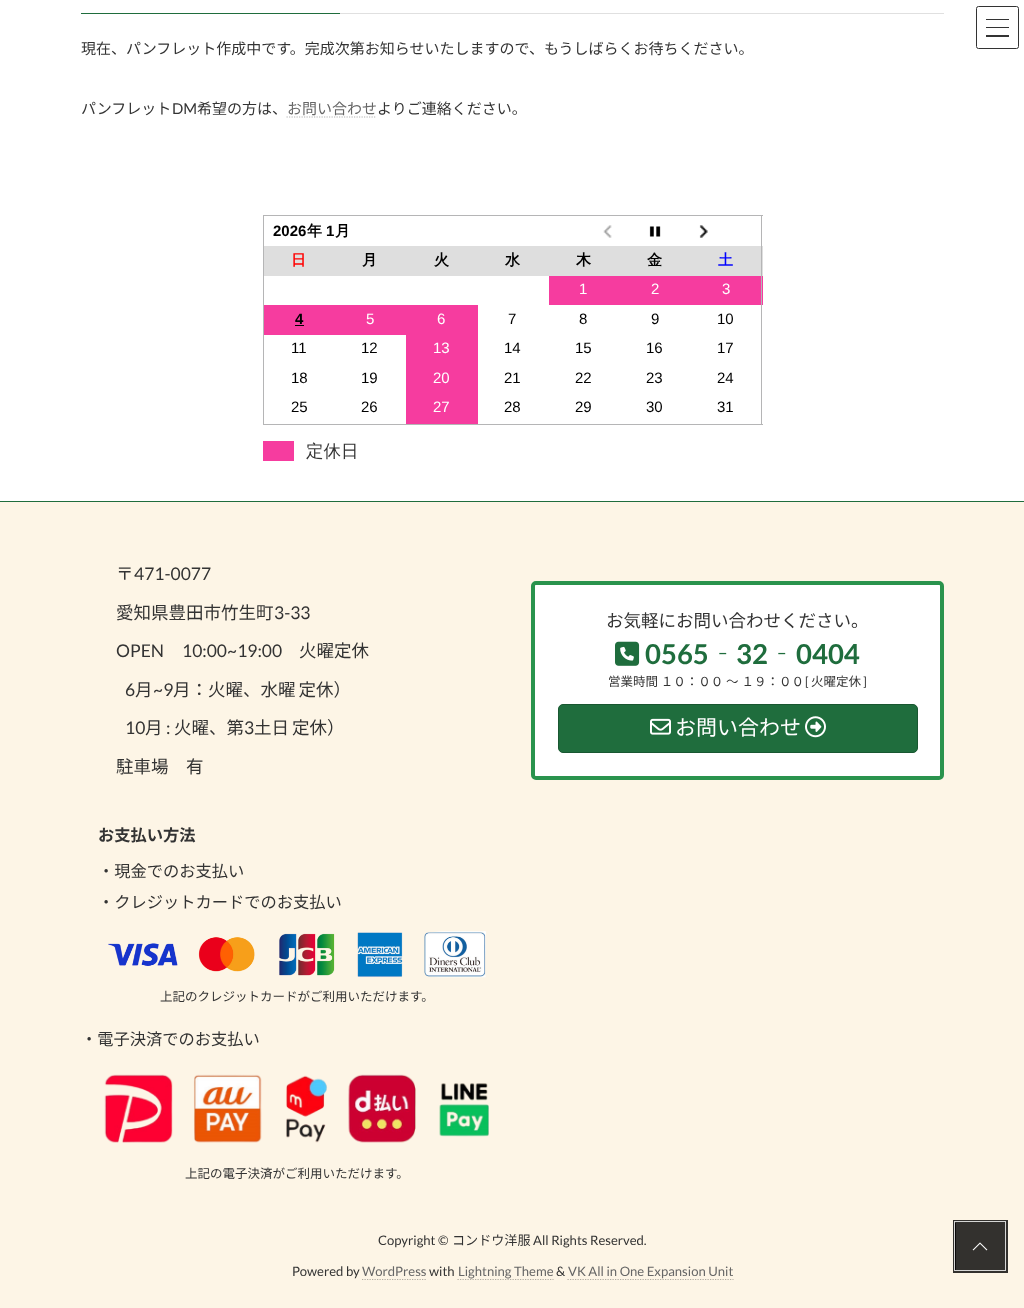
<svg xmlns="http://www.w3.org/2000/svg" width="1024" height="1308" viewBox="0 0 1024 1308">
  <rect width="100%" height="100%" fill="#ffffff"/>
  <rect x="986" y="19" width="23" height="1" fill="#333333"/>
  <rect x="986" y="27" width="23" height="1" fill="#333333"/>
  <rect x="986" y="35" width="23" height="2" fill="#333333"/>
  <rect x="976.5" y="6.5" width="42" height="42" rx="2" fill="none" stroke="#333333"/>
  <rect x="340" y="13" width="604" height="1" fill="#e0e0e0"/>
  <rect x="81" y="13" width="259" height="1" fill="#1f6d3d"/>
  <text x="81" y="54" font-family="Noto Sans JP" font-size="15" fill="#333333">現在、パンフレット作成中です。完成次第お知らせいたしますので、もうしばらくお待ちください。</text>
  <text x="81" y="114" font-family="Noto Sans JP" font-size="15" fill="#333333">パンフレット</text>
  <text x="172" y="114" font-family="Lato" font-size="15" fill="#333333">DM</text>
  <text x="197" y="114" font-family="Noto Sans JP" font-size="15" fill="#333333">希望の方は、</text>
  <text x="287" y="114" font-family="Noto Sans JP" font-size="15" fill="#666666">お問い合わせ</text>
  <path d="M286.5 117H376.5" fill="none" stroke="#b3b3b3" stroke-width="1.2" stroke-dasharray="1.25 1.25"/>
  <text x="377" y="114" font-family="Noto Sans JP" font-size="15" fill="#333333">よりご連絡ください。</text>
  <rect x="263" y="215" width="500" height="1" fill="#b5b5b6"/>
  <rect x="264" y="246" width="499" height="30" fill="#dedede"/>
  <rect x="549" y="276" width="214" height="29" fill="#f63c9f"/>
  <rect x="761" y="215" width="1" height="210" fill="#b5b5b6"/>
  <rect x="263" y="424" width="500" height="1" fill="#b5b5b6"/>
  <rect x="263" y="215" width="1" height="210" fill="#b5b5b6"/>
  <text x="273" y="236" font-family="Liberation Sans" font-size="15" font-weight="bold" fill="#000000">2026</text>
  <text x="307" y="236" font-family="WenQuanYi Zen Hei" font-size="15" font-weight="bold" fill="#000000">年</text>
  <text x="326" y="236" font-family="Liberation Sans" font-size="15" font-weight="bold" fill="#000000">1</text>
  <text x="335" y="236" font-family="WenQuanYi Zen Hei" font-size="15" font-weight="bold" fill="#000000">月</text>
  <image x="603" y="225" width="9" height="13" href="img1.png"/>
  <image x="649" y="226" width="12" height="11" href="img2.png"/>
  <image x="699" y="225" width="9" height="13" href="img3.png"/>
  <text x="291" y="265" font-family="WenQuanYi Zen Hei" font-size="15" font-weight="bold" fill="#ff0000">日</text>
  <text x="362" y="265" font-family="WenQuanYi Zen Hei" font-size="15" font-weight="bold" fill="#000000">月</text>
  <text x="434" y="265" font-family="WenQuanYi Zen Hei" font-size="15" font-weight="bold" fill="#000000">火</text>
  <text x="505" y="265" font-family="WenQuanYi Zen Hei" font-size="15" font-weight="bold" fill="#000000">水</text>
  <text x="576" y="265" font-family="WenQuanYi Zen Hei" font-size="15" font-weight="bold" fill="#000000">木</text>
  <text x="647" y="265" font-family="WenQuanYi Zen Hei" font-size="15" font-weight="bold" fill="#000000">金</text>
  <text x="718" y="265" font-family="WenQuanYi Zen Hei" font-size="15" font-weight="bold" fill="#0000ff">土</text>
  <text x="579" y="294" font-family="Liberation Sans" font-size="15" fill="#ffffff">1</text>
  <text x="651" y="294" font-family="Liberation Sans" font-size="15" fill="#ffffff">2</text>
  <text x="722" y="294" font-family="Liberation Sans" font-size="15" fill="#ffffff">3</text>
  <rect x="264" y="305" width="214" height="30" fill="#f63c9f"/>
  <text x="295" y="324" font-family="Liberation Sans" font-size="15" font-weight="bold" fill="#000000">4</text>
  <rect x="295" y="325" width="9" height="1" fill="#000000"/>
  <text x="366" y="324" font-family="Liberation Sans" font-size="15" fill="#ffffff">5</text>
  <text x="437" y="324" font-family="Liberation Sans" font-size="15" fill="#ffffff">6</text>
  <text x="508" y="324" font-family="Liberation Sans" font-size="15" fill="#000000">7</text>
  <text x="579" y="324" font-family="Liberation Sans" font-size="15" fill="#000000">8</text>
  <text x="651" y="324" font-family="Liberation Sans" font-size="15" fill="#000000">9</text>
  <text x="717" y="324" font-family="Liberation Sans" font-size="15" fill="#000000">10</text>
  <text x="291" y="353" font-family="Liberation Sans" font-size="15" fill="#000000">11</text>
  <text x="361" y="353" font-family="Liberation Sans" font-size="15" fill="#000000">12</text>
  <rect x="406" y="335" width="72" height="89" fill="#f63c9f"/>
  <text x="433" y="353" font-family="Liberation Sans" font-size="15" fill="#ffffff">13</text>
  <text x="504" y="353" font-family="Liberation Sans" font-size="15" fill="#000000">14</text>
  <text x="575" y="353" font-family="Liberation Sans" font-size="15" fill="#000000">15</text>
  <text x="646" y="353" font-family="Liberation Sans" font-size="15" fill="#000000">16</text>
  <text x="717" y="353" font-family="Liberation Sans" font-size="15" fill="#000000">17</text>
  <text x="291" y="383" font-family="Liberation Sans" font-size="15" fill="#000000">18</text>
  <text x="361" y="383" font-family="Liberation Sans" font-size="15" fill="#000000">19</text>
  <text x="433" y="383" font-family="Liberation Sans" font-size="15" fill="#ffffff">20</text>
  <text x="504" y="383" font-family="Liberation Sans" font-size="15" fill="#000000">21</text>
  <text x="575" y="383" font-family="Liberation Sans" font-size="15" fill="#000000">22</text>
  <text x="646" y="383" font-family="Liberation Sans" font-size="15" fill="#000000">23</text>
  <text x="717" y="383" font-family="Liberation Sans" font-size="15" fill="#000000">24</text>
  <text x="291" y="412" font-family="Liberation Sans" font-size="15" fill="#000000">25</text>
  <text x="361" y="412" font-family="Liberation Sans" font-size="15" fill="#000000">26</text>
  <text x="433" y="412" font-family="Liberation Sans" font-size="15" fill="#ffffff">27</text>
  <text x="504" y="412" font-family="Liberation Sans" font-size="15" fill="#000000">28</text>
  <text x="575" y="412" font-family="Liberation Sans" font-size="15" fill="#000000">29</text>
  <text x="646" y="412" font-family="Liberation Sans" font-size="15" fill="#000000">30</text>
  <text x="717" y="412" font-family="Liberation Sans" font-size="15" fill="#000000">31</text>
  <rect x="263" y="441" width="31" height="20" fill="#f63c9f"/>
  <text x="306" y="457" font-family="WenQuanYi Zen Hei" font-size="17.5" font-weight="500" fill="#333333">定休日</text>
  <rect x="0" y="502" width="1024" height="806" fill="#fdf5e6"/>
  <rect x="0" y="501" width="1024" height="1" fill="#1f6d3d"/>
  <text x="116" y="580" font-family="Noto Sans JP" font-size="17.5" fill="#333333">〒</text>
  <text x="134" y="580" font-family="Lato" font-size="17.5" fill="#333333">471-0077</text>
  <text x="116" y="619" font-family="Noto Sans JP" font-size="17.5" fill="#333333">愛知県豊田市竹生町</text>
  <text x="274" y="619" font-family="Lato" font-size="17.5" fill="#333333">3-33</text>
  <text x="116" y="657" font-family="Lato" font-size="17.5" fill="#333333">OPEN</text>
  <text x="182" y="657" font-family="Lato" font-size="17.5" fill="#333333">10:00~19:00</text>
  <text x="299" y="657" font-family="Noto Sans JP" font-size="17.5" fill="#333333">火曜定休</text>
  <text x="125" y="696" font-family="Lato" font-size="17.5" fill="#333333">6</text>
  <text x="135" y="696" font-family="Noto Sans JP" font-size="17.5" fill="#333333">月</text>
  <text x="153" y="696" font-family="Lato" font-size="17.5" fill="#333333">~9</text>
  <text x="173" y="696" word-spacing="-1" font-family="Noto Sans JP" font-size="17.5" fill="#333333">月：火曜、水曜 定休）</text>
  <text x="125" y="734" font-family="Lato" font-size="17.5" fill="#333333">10</text>
  <text x="145" y="734" font-family="Noto Sans JP" font-size="17.5" fill="#333333">月</text>
  <text x="166" y="734" font-family="Lato" font-size="17.5" fill="#333333">:</text>
  <text x="174" y="734" font-family="Noto Sans JP" font-size="17.5" fill="#333333">火曜、第</text>
  <text x="244" y="734" font-family="Lato" font-size="17.5" fill="#333333">3</text>
  <text x="254" y="734" word-spacing="-1" font-family="Noto Sans JP" font-size="17.5" fill="#333333">土日 定休）</text>
  <text x="116" y="773" font-family="Noto Sans JP" font-size="17.5" fill="#333333">駐車場　有</text>
  <rect x="533" y="583" width="409" height="195" rx="3" fill="#ffffff" stroke="#2a934d" stroke-width="4"/>
  <path d="M536 585L535 586V775L536 776H939L940 775V586L939 585ZM536 586V775H939V586Z" fill="#ffffff" fill-opacity="0.8" fill-rule="evenodd"/>
  <text x="606" y="627" font-family="Noto Sans JP" font-size="17.5" fill="#333333">お気軽にお問い合わせください。</text>
  <image x="615" y="641" width="25" height="25" href="img4.png"/>
  <text x="645" y="664" font-family="Lato" font-size="27.5" font-weight="bold" fill="#1f6d3d">0565</text>
  <text x="709" y="664" font-family="Noto Sans JP" font-size="27.5" font-weight="bold" fill="#1f6d3d">‐</text>
  <text x="736" y="664" font-family="Lato" font-size="27.5" font-weight="bold" fill="#1f6d3d">32</text>
  <text x="768" y="664" font-family="Noto Sans JP" font-size="27.5" font-weight="bold" fill="#1f6d3d">‐</text>
  <text x="796" y="664" font-family="Lato" font-size="27.5" font-weight="bold" fill="#1f6d3d">0404</text>
  <text x="608" y="686" font-family="Noto Sans JP" font-size="12.5" fill="#333333">営業時間 １０：００ ～ １９：００</text>
  <text x="805" y="686" font-family="Lato" font-size="12.5" fill="#333333">[</text>
  <text x="811" y="686" font-family="Noto Sans JP" font-size="12.5" fill="#333333">火曜定休</text>
  <text x="863" y="686" font-family="Lato" font-size="12.5" fill="#333333">]</text>
  <rect x="558.5" y="704.5" width="359" height="48" rx="4.5" fill="#1f6d3d" stroke="#195731"/>
  <image x="650" y="718" width="21" height="17" href="img5.png"/>
  <text x="675" y="735" font-family="Noto Sans JP" font-size="21" fill="#ffffff">お問い合わせ</text>
  <image x="805" y="716" width="21" height="22" href="img6.png"/>
  <text x="98" y="841" font-family="Noto Sans JP" font-size="16.25" font-weight="bold" fill="#333333">お支払い方法</text>
  <text x="98" y="877" font-family="Noto Sans JP" font-size="16.25" fill="#333333">・現金でのお支払い</text>
  <text x="98" y="908" font-family="Noto Sans JP" font-size="16.25" fill="#333333">・クレジットカードでのお支払い</text>
  <image x="108" y="931" width="378" height="47" href="img7.png"/>
  <text x="160" y="1001" font-family="Noto Sans JP" font-size="12.5" fill="#333333">上記のクレジットカードがご利用いただけます。</text>
  <text x="81" y="1045" font-family="Noto Sans JP" font-size="16.25" fill="#333333">・電子決済でのお支払い</text>
  <image x="104" y="1074" width="385" height="69" href="img8.png"/>
  <text x="185" y="1178" font-family="Noto Sans JP" font-size="12.5" fill="#333333">上記の電子決済がご利用いただけます。</text>
  <text x="378" y="1245" font-family="Lato" font-size="13.1" fill="#333333">Copyright ©</text>
  <text x="452" y="1245" font-family="Noto Sans JP" font-size="13.1" fill="#333333">コンドウ洋服</text>
  <text x="533" y="1245" font-family="Lato" font-size="13.1" fill="#333333">All Rights Reserved.</text>
  <text x="292" y="1276" font-family="Lato" font-size="13.1" fill="#333333">Powered by</text>
  <text x="362" y="1276" font-family="Lato" font-size="13.1" fill="#666666">WordPress</text>
  <path d="M362 1279.5H427" fill="none" stroke="#b1aca1" stroke-width="1.2" stroke-dasharray="1.25 1.25"/>
  <text x="429" y="1276" font-family="Lato" font-size="13.1" fill="#333333">with</text>
  <path d="M457.5 1279.5H553.5" fill="none" stroke="#b1aca1" stroke-width="1.2" stroke-dasharray="1.25 1.25"/>
  <text x="458" y="1276" font-family="Lato" font-size="13.1" fill="#666666">Lightning Theme</text>
  <text x="556" y="1276" font-family="Lato" font-size="13.1" fill="#333333">&amp;</text>
  <path d="M567.5 1279.5H733.5" fill="none" stroke="#b1aca1" stroke-width="1.2" stroke-dasharray="1.25 1.25"/>
  <text x="568" y="1276" font-family="Lato" font-size="13.1" fill="#666666">VK All in One Expansion Unit</text>
  <rect x="954.5" y="1221.5" width="52" height="50" fill="none" stroke="#33312e" stroke-width="3"/>
  <rect x="954.5" y="1221.5" width="51" height="49" fill="none" stroke="#d6d6d5"/>
  <rect x="955" y="1223" width="50" height="47" fill="#000000" fill-opacity="0.8"/>
  <image x="972" y="1242" width="16" height="9" href="img9.png"/>
</svg>
